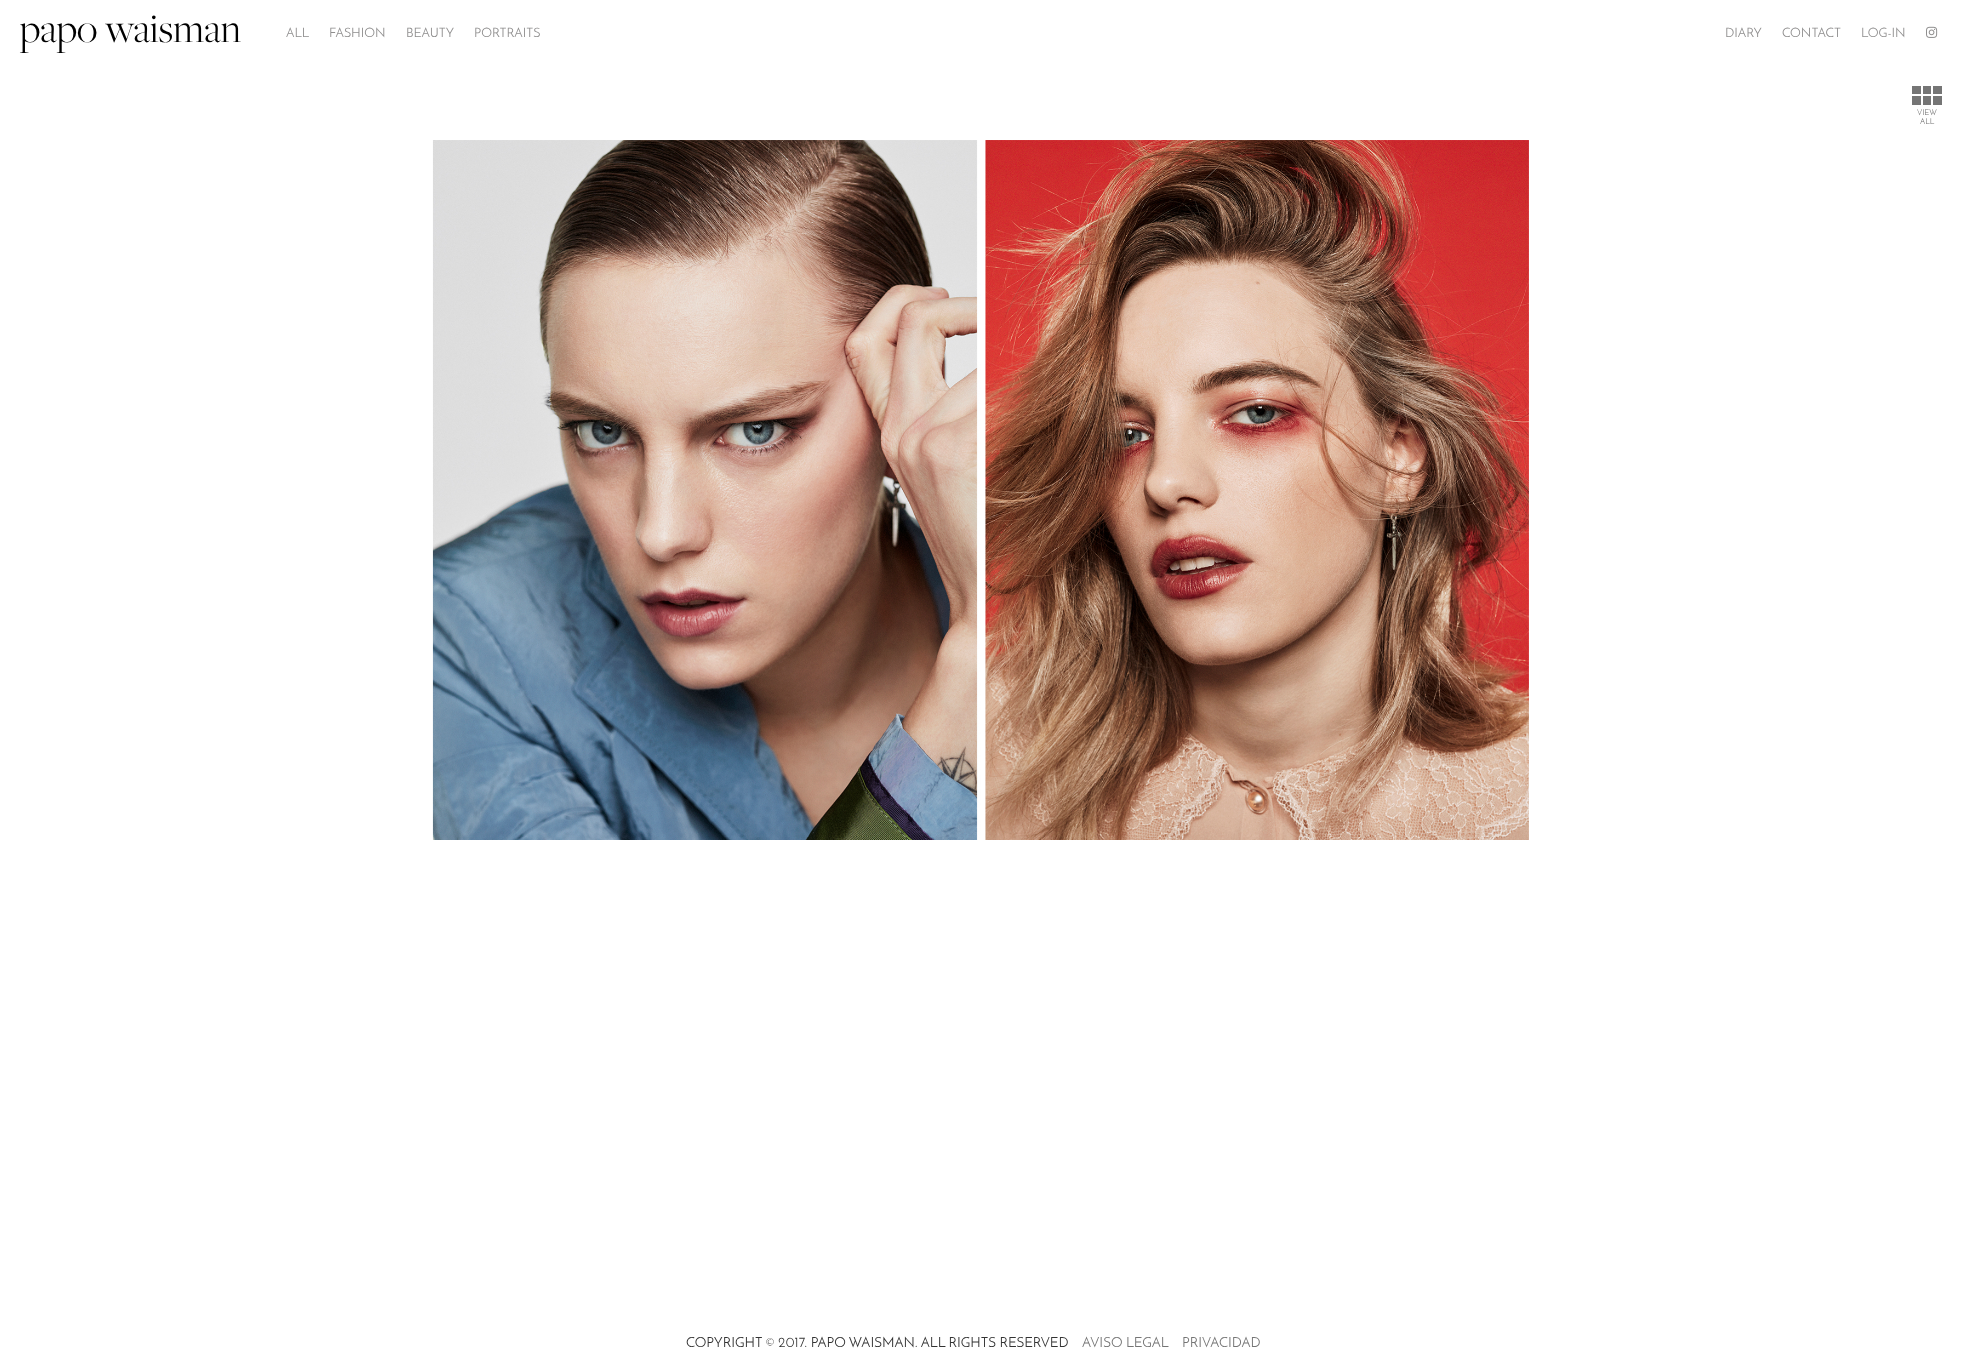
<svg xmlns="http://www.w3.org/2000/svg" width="1962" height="1363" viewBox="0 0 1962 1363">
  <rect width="100%" height="100%" fill="#ffffff"/>
  <text x="20" y="42" font-family="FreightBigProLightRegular" font-size="43" fill="#000000">papo waisman</text>
  <text x="286" y="37" font-family="Josefin Sans" font-size="13" fill="#8e8d8d">ALL</text>
  <text x="329" y="37" font-family="Josefin Sans" font-size="13" fill="#8e8d8d">FASHION</text>
  <text x="406" y="37" font-family="Josefin Sans" font-size="13" fill="#8e8d8d">BEAUTY</text>
  <text x="474" y="37" font-family="Josefin Sans" font-size="13" fill="#8e8d8d">PORTRAITS</text>
  <text x="1725" y="37" font-family="Josefin Sans" font-size="13" fill="#8e8d8d">DIARY</text>
  <text x="1782" y="37" font-family="Josefin Sans" font-size="13" fill="#8e8d8d">CONTACT</text>
  <text x="1861" y="37" font-family="Josefin Sans" font-size="13" fill="#8e8d8d">LOG-IN</text>
  <image x="1926" y="26" width="12" height="12" href="img1.png"/>
  <text x="1917" y="115" font-family="Josefin Sans" font-size="8" fill="#757575">VIEW</text>
  <rect x="1912" y="86" width="9" height="8" fill="#757575"/>
  <rect x="1923" y="86" width="8" height="8" fill="#757575"/>
  <rect x="1933" y="86" width="9" height="8" fill="#757575"/>
  <rect x="1933" y="96" width="9" height="9" fill="#757575"/>
  <rect x="1923" y="96" width="8" height="9" fill="#757575"/>
  <rect x="1912" y="96" width="9" height="9" fill="#757575"/>
  <text x="1920" y="124" font-family="Josefin Sans" font-size="8" fill="#757575">ALL</text>
  <image x="432" y="140" width="1097" height="700" href="img2.png"/>
  <text x="686" y="1347" font-family="Josefin Sans" font-size="14" fill="#333333">COPYRIGHT © 2017. PAPO WAISMAN. ALL RIGHTS RESERVED</text>
  <text x="1082" y="1347" font-family="Josefin Sans" font-size="14" fill="#757575">AVISO LEGAL</text>
  <text x="1182" y="1347" font-family="Josefin Sans" font-size="14" fill="#757575">PRIVACIDAD</text>
</svg>
